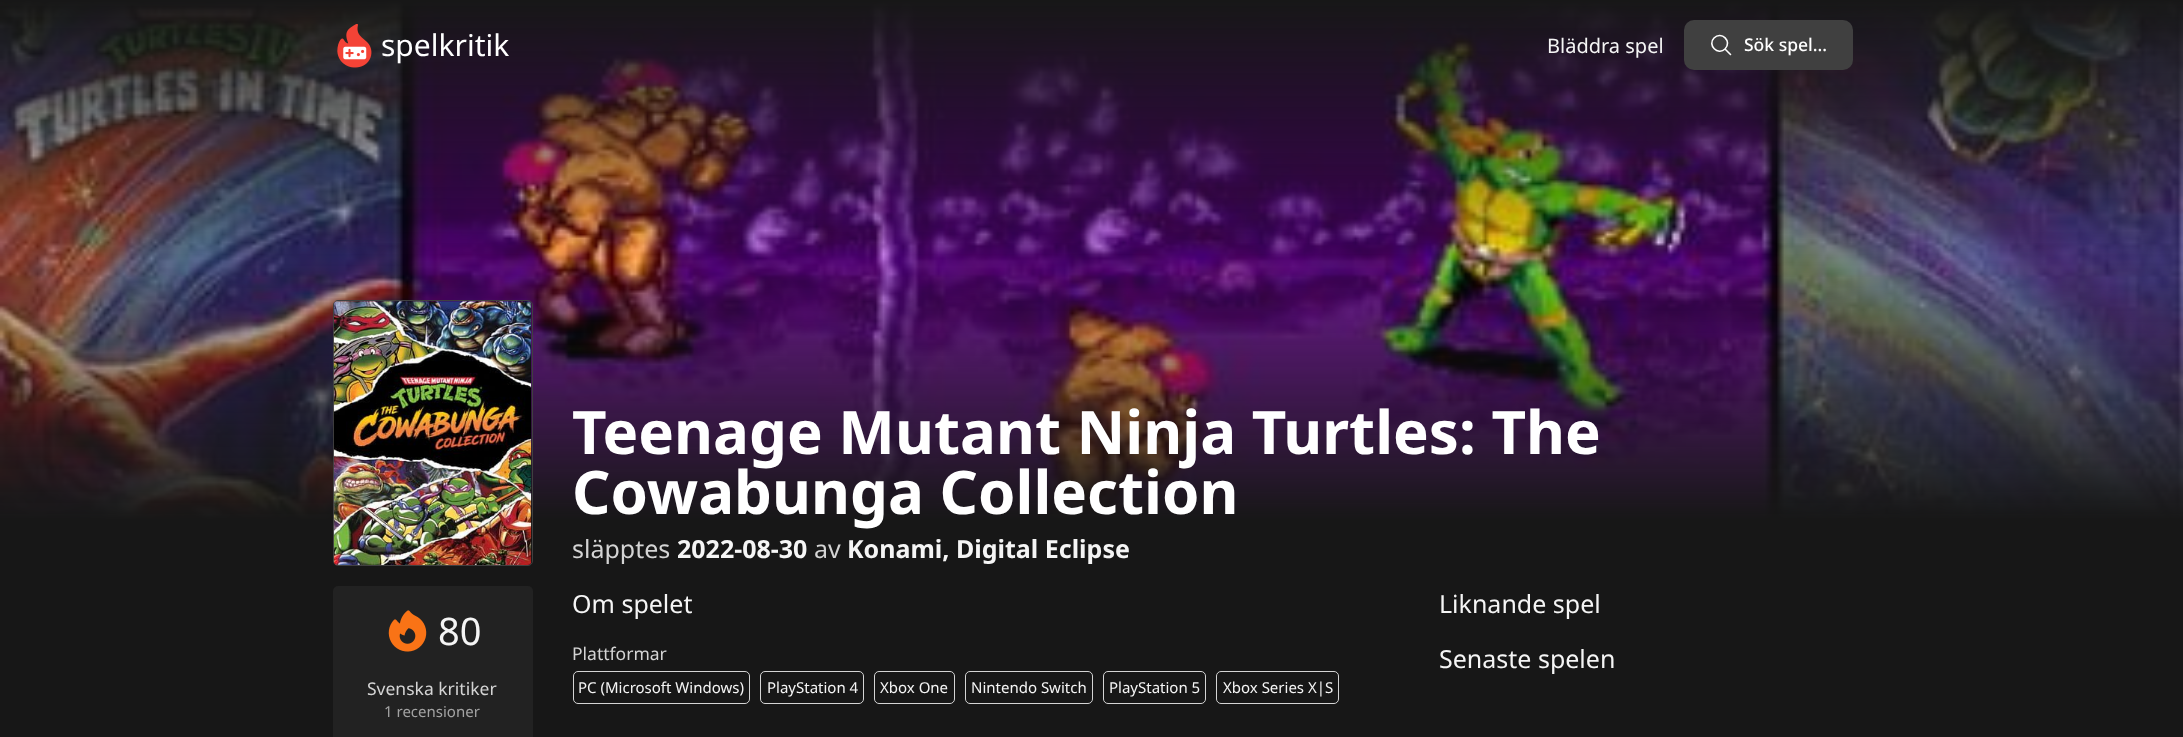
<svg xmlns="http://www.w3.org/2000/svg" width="2183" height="737">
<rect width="100%" height="100%" fill="#171717"/>
<image x="0" y="0" width="2183" height="520" href="media/2.png"/>
<image x="337" y="24" width="35" height="44" href="media/1.png"/>
<text x="381" y="56" style="font-family:Noto Sans;font-size:30px;fill:#fff">spelkritik</text>
<text x="1547" y="53" style="font-family:Noto Sans;font-size:20px;fill:#f5f5f5">Bläddra spel</text>
<rect x="1684" y="20" width="169" height="50" rx="10" fill="#404040"/>
<path d="M1730.5 54.5l-5.5-5.5m0 0c7.5-7.5-3.5-18.5-11-11c-7 7 4 18 11 11z" fill="none" stroke="#fff" stroke-width="1.6" stroke-linecap="round" stroke-linejoin="round"/>
<text x="1744" y="51" style="font-family:Noto Sans;font-size:17.5px;font-weight:500;fill:#fff">Sök spel...</text>
<rect x="333.5" y="300.5" width="199" height="265" rx="4.5" fill="none" stroke="#404040"/>
<image x="333" y="301" width="199" height="264" href="media/3.png"/>
<text x="572" y="454" style="font-family:Noto Sans;font-size:60px;font-weight:bold;fill:#fff">Teenage Mutant Ninja Turtles: The</text>
<text x="572" y="514" style="font-family:Noto Sans;font-size:60px;font-weight:bold;fill:#fff">Cowabunga Collection</text>
<text x="572" y="558" style="font-family:Noto Sans;font-size:25px;fill:#d4d4d4">släpptes</text>
<text x="677" y="558" style="font-family:Noto Sans;font-size:25px;font-weight:bold;fill:#f5f5f5">2022-08-30</text>
<text x="814" y="558" style="font-family:Noto Sans;font-size:25px;fill:#d4d4d4">av</text>
<text x="847" y="558" style="font-family:Noto Sans;font-size:25px;font-weight:bold;fill:#f5f5f5">Konami, Digital Eclipse</text>
<rect x="333" y="586" width="200" height="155" rx="5" fill="#222"/>
<image x="388" y="610" width="39" height="42" href="media/4.png"/>
<text x="438" y="645" style="font-family:Noto Sans;font-size:38px;fill:#f5f5f5">80</text>
<text x="367" y="695" style="font-family:Noto Sans;font-size:17.5px;fill:#d4d4d4">Svenska kritiker</text>
<text x="384" y="717" style="font-family:Noto Sans;font-size:15px;fill:#a3a3a3">1 recensioner</text>
<text x="572" y="613" style="font-family:Noto Sans;font-size:25px;fill:#f5f5f5">Om spelet</text>
<text x="572" y="660" style="font-family:Noto Sans;font-size:17.5px;fill:#d4d4d4">Plattformar</text>
<rect x="573.5" y="671.5" width="176" height="32" rx="4.5" fill="none" stroke="#d4d4d4"/>
<text x="578" y="693" style="font-family:Noto Sans;font-size:15px;fill:#f5f5f5">PC (Microsoft Windows)</text>
<rect x="760.5" y="671.5" width="103" height="32" rx="4.5" fill="none" stroke="#d4d4d4"/>
<text x="767" y="693" style="font-family:Noto Sans;font-size:15px;fill:#f5f5f5">PlayStation 4</text>
<rect x="874.5" y="671.5" width="80" height="32" rx="4.5" fill="none" stroke="#d4d4d4"/>
<text x="880" y="693" style="font-family:Noto Sans;font-size:15px;fill:#f5f5f5">Xbox One</text>
<rect x="965.5" y="671.5" width="127" height="32" rx="4.5" fill="none" stroke="#d4d4d4"/>
<text x="971" y="693" style="font-family:Noto Sans;font-size:15px;fill:#f5f5f5">Nintendo Switch</text>
<rect x="1103.5" y="671.5" width="102" height="32" rx="4.5" fill="none" stroke="#d4d4d4"/>
<text x="1109" y="693" style="font-family:Noto Sans;font-size:15px;fill:#f5f5f5">PlayStation 5</text>
<rect x="1216.5" y="671.5" width="122" height="32" rx="4.5" fill="none" stroke="#d4d4d4"/>
<text x="1223" y="693" style="font-family:Noto Sans;font-size:15px;fill:#f5f5f5">Xbox Series X|S</text>
<text x="1439" y="613" style="font-family:Noto Sans;font-size:25px;fill:#f5f5f5">Liknande spel</text>
<text x="1439" y="668" style="font-family:Noto Sans;font-size:25px;fill:#f5f5f5">Senaste spelen</text>
</svg>
